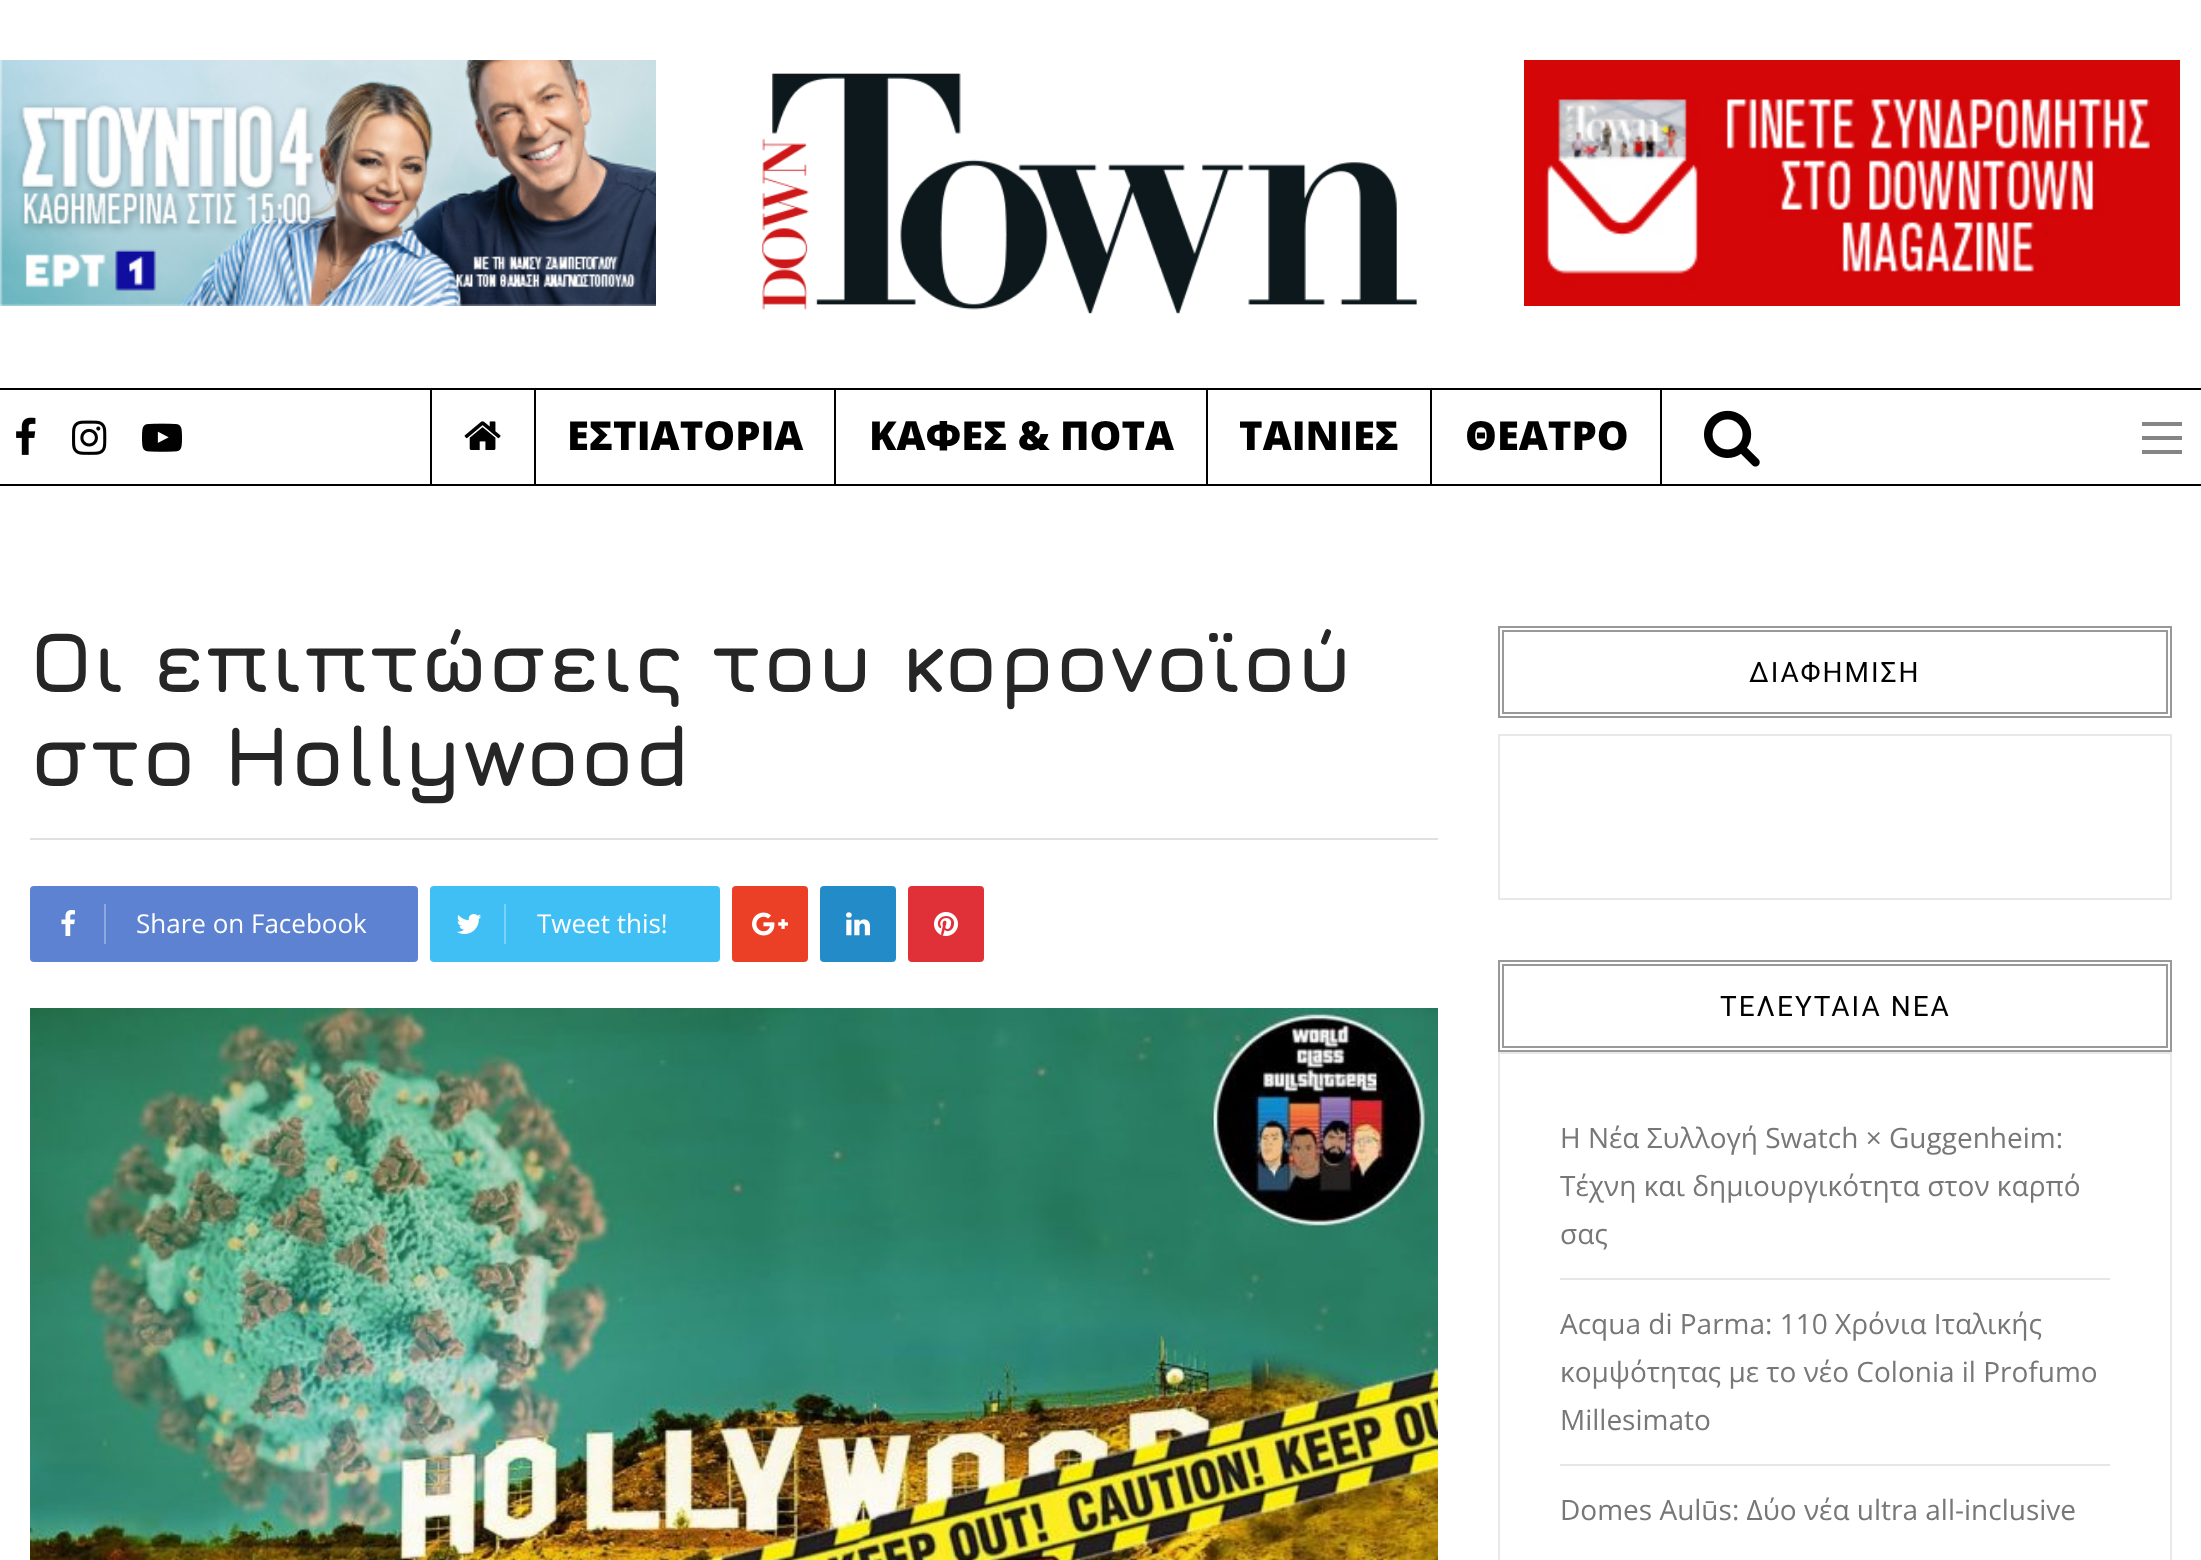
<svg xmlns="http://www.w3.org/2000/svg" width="2201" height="1560">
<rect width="100%" height="100%" fill="#fff"/>
<image x="0" y="60" width="656" height="246" href="media/1.png"/>
<image x="762" y="73" width="655" height="241" href="media/2.png"/>
<image x="1524" y="60" width="656" height="246" href="media/3.png"/>
<rect y="388" width="2201" height="2" fill="#000"/>
<rect y="484" width="2201" height="2" fill="#000"/>
<image x="16" y="417" width="20" height="38" href="media/4.png"/>
<image x="72" y="420" width="35" height="35" href="media/5.png"/>
<image x="142" y="423" width="40" height="29" href="media/6.png"/>
<rect x="430" y="388" width="2" height="96" fill="#010101"/>
<image x="464" y="421" width="37" height="29" href="media/7.png"/>
<rect x="534" y="388" width="2" height="96" fill="#010101"/>
<text x="567" y="450" style="font-family:Open Sans;font-size:40px;font-weight:800;fill:#000">ΕΣΤΙΑΤΟΡΙΑ</text>
<rect x="834" y="388" width="2" height="96" fill="#010101"/>
<text x="869" y="450" style="font-family:Open Sans;font-size:40px;font-weight:800;fill:#000">ΚΑΦΕΣ &amp; ΠΟΤΑ</text>
<rect x="1206" y="388" width="2" height="96" fill="#010101"/>
<text x="1239" y="450" style="font-family:Open Sans;font-size:40px;font-weight:800;fill:#000">ΤΑΙΝΙΕΣ</text>
<rect x="1430" y="388" width="2" height="96" fill="#010101"/>
<text x="1465" y="450" style="font-family:Open Sans;font-size:40px;font-weight:800;fill:#000">ΘΕΑΤΡΟ</text>
<rect x="1660" y="390" width="2" height="96" fill="#000"/>
<image x="1704" y="410" width="56" height="57" href="media/8.png"/>
<rect x="2142" y="422" width="40" height="4" fill="#858585"/>
<rect x="2142" y="436" width="40" height="4" fill="#858585"/>
<rect x="2142" y="450" width="40" height="4" fill="#858585"/>
<text x="30" y="692" style="font-family:Jura;font-size:86px;font-weight:bold;fill:#262626">Οι επιπτώσεις του κορονοϊού</text>
<text x="30" y="786" style="font-family:Jura;font-size:86px;font-weight:bold;fill:#262626">στο Hollywood</text>
<rect x="30" y="838" width="1408" height="2" fill="#e0e0e0"/>
<rect x="30" y="886" width="388" height="76" rx="4" fill="#5d82d1"/>
<image x="61" y="910" width="14" height="26" href="media/9.png"/>
<rect x="104" y="904" width="2" height="40" fill="#8ea8df"/>
<text x="136" y="933" style="font-family:Open Sans;font-size:26px;fill:#fff">Share on Facebook</text>
<rect x="430" y="886" width="290" height="76" rx="4" fill="#40bff5"/>
<image x="456" y="914" width="26" height="20" href="media/10.png"/>
<rect x="504" y="904" width="2" height="40" fill="#79d2f8"/>
<text x="537" y="933" style="font-family:Open Sans;font-size:26px;fill:#fff">Tweet this!</text>
<rect x="732" y="886" width="76" height="76" rx="4" fill="#eb4026"/>
<image x="752" y="912" width="36" height="24" href="media/11.png"/>
<rect x="820" y="886" width="76" height="76" rx="4" fill="#238cc8"/>
<image x="846" y="912" width="24" height="24" href="media/12.png"/>
<rect x="908" y="886" width="76" height="76" rx="4" fill="#e13138"/>
<image x="934" y="912" width="24" height="24" href="media/13.png"/>
<image x="30" y="1008" width="1408" height="552" href="media/14.png"/>
<rect x="1499" y="627" width="672" height="90" fill="none" stroke="#999" stroke-width="2"/>
<rect x="1503" y="631" width="664" height="82" fill="none" stroke="#999" stroke-width="2"/>
<text x="1749" y="682" style="font-family:Roboto;font-size:28px;letter-spacing:2px;fill:#000">ΔΙΑΦΗΜΙΣΗ</text>
<rect x="1499" y="735" width="672" height="164" fill="none" stroke="#e8e8e8" stroke-width="2"/>
<rect x="1499" y="961" width="672" height="90" fill="none" stroke="#999" stroke-width="2"/>
<rect x="1503" y="965" width="664" height="82" fill="none" stroke="#999" stroke-width="2"/>
<text x="1720" y="1016" style="font-family:Roboto;font-size:28px;letter-spacing:2px;fill:#000">ΤΕΛΕΥΤΑΙΑ ΝΕΑ</text>
<rect x="1499" y="1053" width="672" height="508" fill="none" stroke="#e8e8e8" stroke-width="2"/>
<text x="1560" y="1148" style="font-family:Open Sans;font-size:28px;fill:#777">Η Νέα Συλλογή Swatch × Guggenheim:</text>
<text x="1560" y="1196" style="font-family:Open Sans;font-size:28px;fill:#777">Τέχνη και δημιουργικότητα στον καρπό</text>
<text x="1560" y="1244" style="font-family:Open Sans;font-size:28px;fill:#777">σας</text>
<rect x="1560" y="1278" width="550" height="2" fill="#e6e6e6"/>
<text x="1560" y="1334" style="font-family:Open Sans;font-size:28px;fill:#777">Acqua di Parma: 110 Χρόνια Ιταλικής</text>
<text x="1560" y="1382" style="font-family:Open Sans;font-size:28px;fill:#777">κομψότητας με το νέο Colonia il Profumo</text>
<text x="1560" y="1430" style="font-family:Open Sans;font-size:28px;fill:#777">Millesimato</text>
<rect x="1560" y="1464" width="550" height="2" fill="#e6e6e6"/>
<text x="1560" y="1520" style="font-family:Open Sans;font-size:28px;fill:#777">Domes Aulūs: Δύο νέα ultra all-inclusive</text>
</svg>
